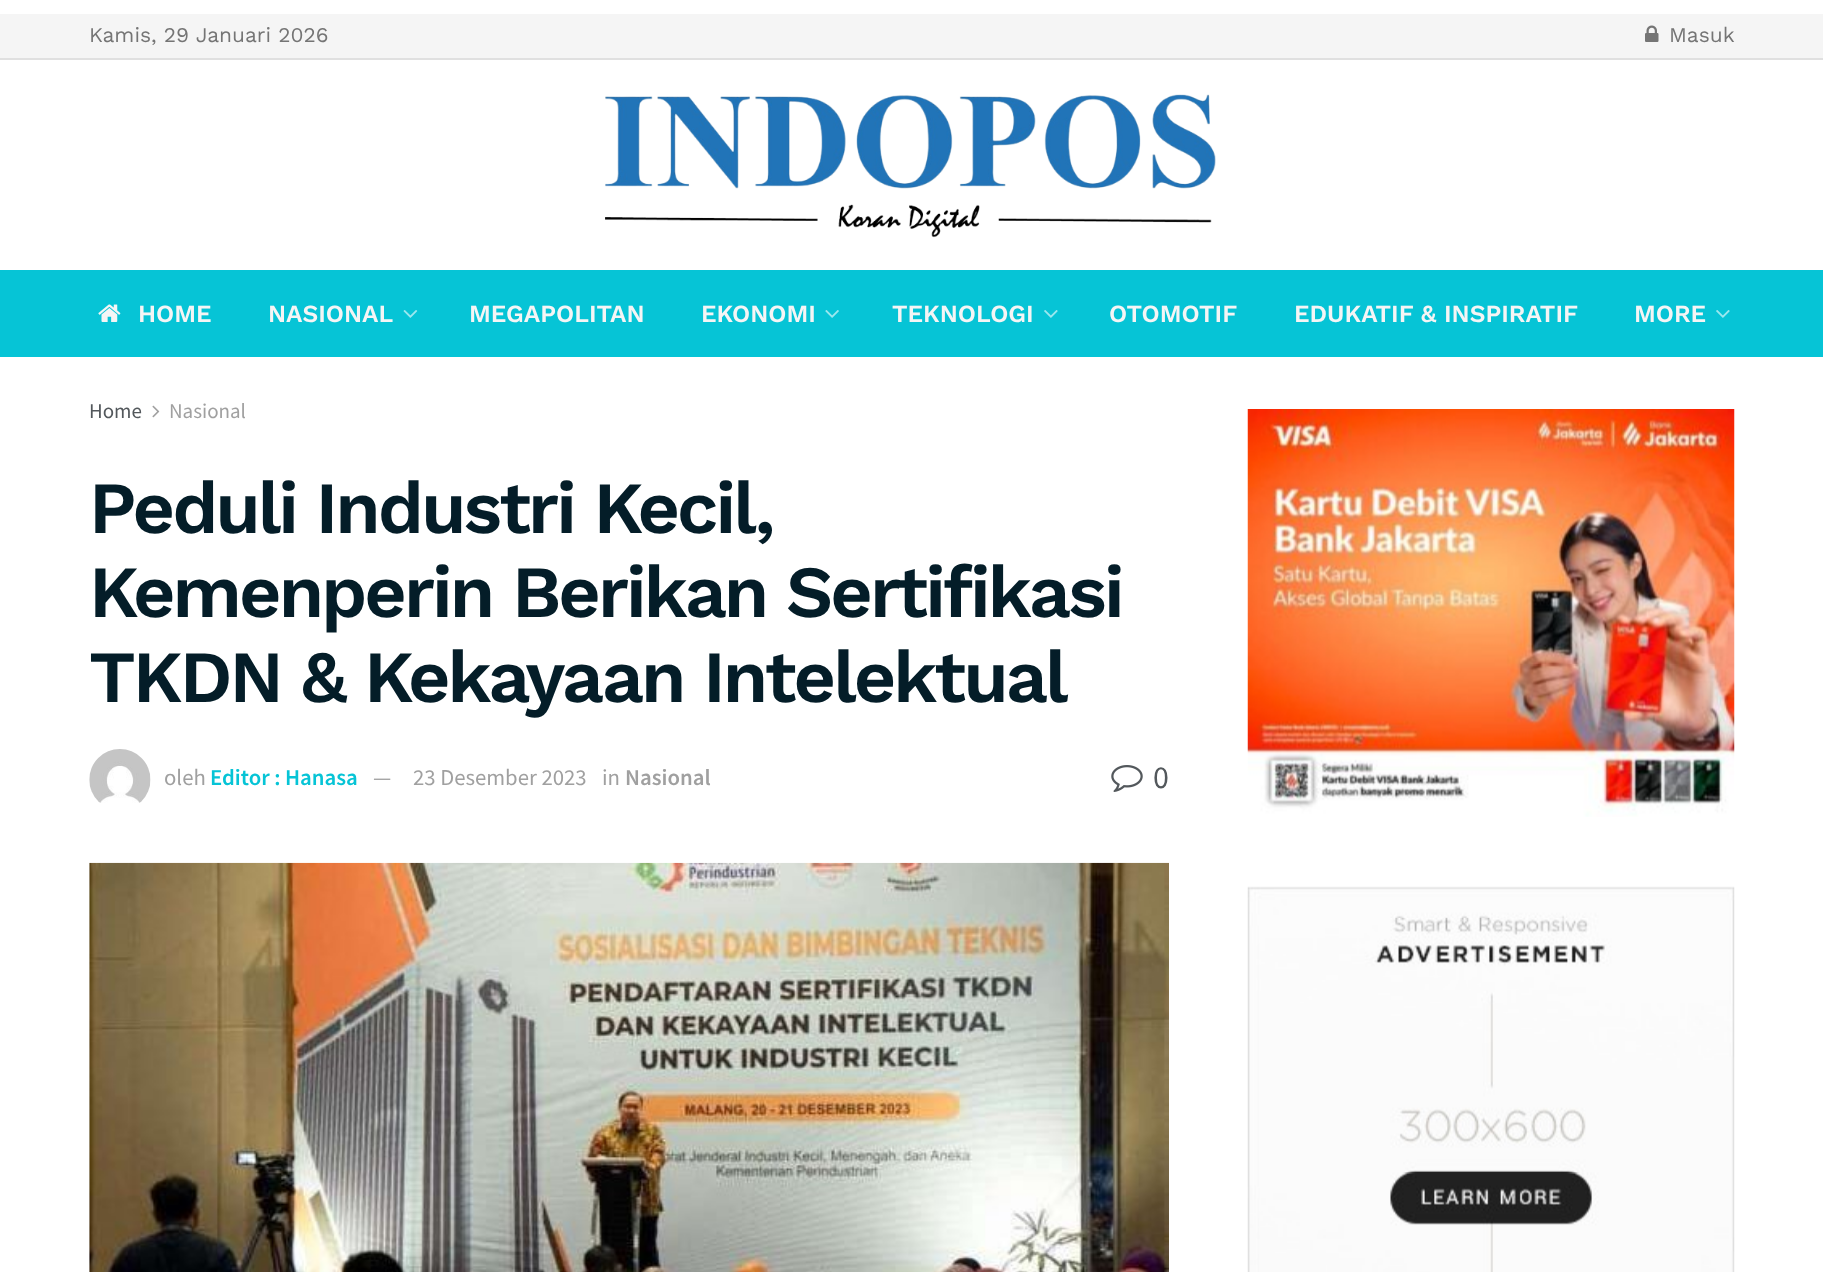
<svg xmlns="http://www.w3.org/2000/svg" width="1823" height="1272">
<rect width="100%" height="100%" fill="#fff"/>
<rect y="14" width="1823" height="44" fill="#f5f5f5"/>
<rect y="58" width="1823" height="2" fill="#e0e0e0"/>
<text x="89" y="42" style="font-family:Work Sans;font-size:21px;fill:#757575">Kamis, 29 Januari 2026</text>
<image x="1645" y="25" width="14" height="17" href="media/1.png"/>
<text x="1669" y="42" style="font-family:Work Sans;font-size:21px;fill:#757575">Masuk</text>
<image x="605" y="94" width="611" height="144" href="media/2.png"/>
<rect y="270" width="1823" height="87" fill="#06c4d6"/>
<image x="98" y="304" width="23" height="18" href="media/3.png"/>
<text x="138" y="322" style="font-family:Work Sans;font-size:24.5px;font-weight:600;fill:#f5f5f5">HOME</text>
<text x="268" y="322" style="font-family:Work Sans;font-size:24.5px;font-weight:600;fill:#f5f5f5">NASIONAL</text>
<image x="403" y="310" width="15" height="8" href="media/4.png"/>
<text x="469" y="322" style="font-family:Work Sans;font-size:24.5px;font-weight:600;fill:#f5f5f5">MEGAPOLITAN</text>
<text x="701" y="322" style="font-family:Work Sans;font-size:24.5px;font-weight:600;fill:#f5f5f5">EKONOMI</text>
<image x="825" y="310" width="14" height="8" href="media/5.png"/>
<text x="892" y="322" style="font-family:Work Sans;font-size:24.5px;font-weight:600;fill:#f5f5f5">TEKNOLOGI</text>
<image x="1044" y="310" width="14" height="8" href="media/6.png"/>
<text x="1109" y="322" style="font-family:Work Sans;font-size:24.5px;font-weight:600;fill:#f5f5f5">OTOMOTIF</text>
<text x="1294" y="322" style="font-family:Work Sans;font-size:24.5px;font-weight:600;fill:#f5f5f5">EDUKATIF &amp; INSPIRATIF</text>
<text x="1634" y="322" style="font-family:Work Sans;font-size:24.5px;font-weight:600;fill:#f5f5f5">MORE</text>
<image x="1716" y="310" width="14" height="8" href="media/6.png"/>
<text x="89" y="418" style="font-family:Source Sans Pro;font-size:21px;fill:#53585c">Home</text>
<image x="152" y="405" width="8" height="13" href="media/7.png"/>
<text x="169" y="418" style="font-family:Source Sans Pro;font-size:21px;fill:#a0a0a0">Nasional</text>
<text x="89" y="533" style="font-family:Work Sans;font-size:73.5px;font-weight:600;letter-spacing:-2.95px;fill:#041d28">Peduli Industri Kecil,</text>
<text x="89" y="617" style="font-family:Work Sans;font-size:73.5px;font-weight:600;letter-spacing:-2.95px;fill:#041d28">Kemenperin Berikan Sertifikasi</text>
<text x="89" y="702" style="font-family:Work Sans;font-size:73.5px;font-weight:600;letter-spacing:-2.95px;fill:#041d28">TKDN &amp; Kekayaan Intelektual</text>
<image x="89" y="749" width="62" height="54" href="media/8.png"/>
<text x="164" y="785" style="font-family:Source Sans Pro;font-size:22.75px;fill:#a0a0a0">oleh</text>
<text x="210" y="785" style="font-family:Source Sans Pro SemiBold;font-size:22.75px;font-weight:600;fill:#06c4d6">Editor : Hanasa</text>
<text x="373" y="785" style="font-family:Source Sans Pro;font-size:22.75px;fill:#a0a0a0">—</text>
<text x="413" y="785" style="font-family:Source Sans Pro;font-size:22.75px;fill:#a0a0a0">23 Desember 2023</text>
<text x="602" y="785" style="font-family:Source Sans Pro;font-size:22.75px;fill:#a0a0a0">in</text>
<text x="625" y="785" style="font-family:Source Sans Pro SemiBold;font-size:22.75px;font-weight:600;fill:#a0a0a0">Nasional</text>
<image x="1111" y="765" width="32" height="27" href="media/9.png"/>
<text x="1153" y="788" style="font-family:Source Sans Pro;font-size:32px;fill:#53585c">0</text>
<rect x="89" y="863" width="1" height="409" fill="#f7f7f7"/>
<image x="89" y="862" width="1080" height="410" href="media/10.png"/>
<image x="1247" y="409" width="488" height="408" href="media/11.png"/>
<image x="1247" y="886" width="488" height="386" href="media/12.png"/>
</svg>
